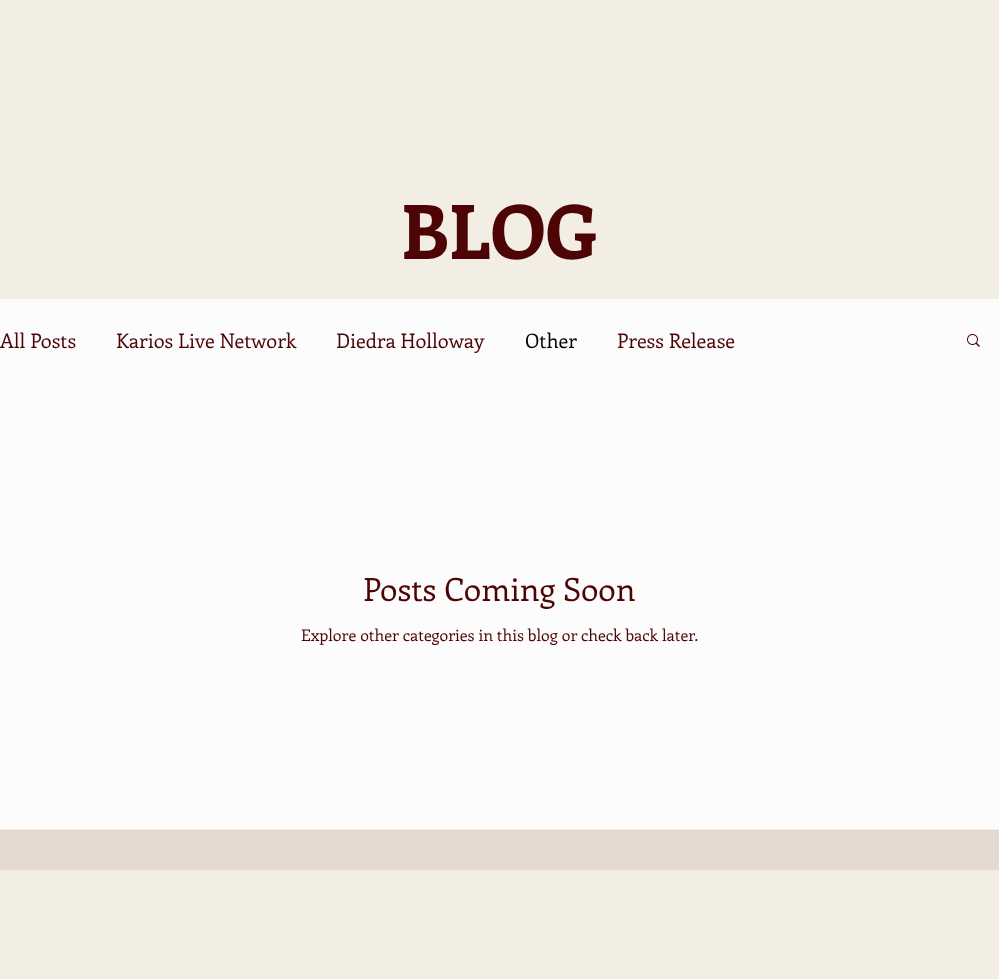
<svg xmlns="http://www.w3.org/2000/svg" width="999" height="979">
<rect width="100%" height="100%" fill="#f2eee4"/>
<text x="401" y="259" style="font-family:Enriqueta;font-size:75px;font-weight:bold;fill:#4d0404">BLOG</text>
<rect y="299" width="999" height="530" fill="#fcfcfc"/>
<text x="0" y="348" style="font-family:Enriqueta;font-size:20px;fill:#4d0404">All Posts</text>
<text x="116" y="348" style="font-family:Enriqueta;font-size:20px;fill:#4d0404">Karios Live Network</text>
<text x="336" y="348" style="font-family:Enriqueta;font-size:20px;fill:#4d0404">Diedra Holloway</text>
<text x="525" y="348" style="font-family:Enriqueta;font-size:20px;fill:#000">Other</text>
<text x="617" y="348" style="font-family:Enriqueta;font-size:20px;fill:#4d0404">Press Release</text>
<image x="967" y="334" width="13" height="13" href="media/1.png"/>
<text x="363" y="601" style="font-family:Enriqueta;font-size:32px;fill:#4d0404">Posts Coming Soon</text>
<text x="301" y="641" style="font-family:Enriqueta;font-size:16px;fill:#4d0404">Explore other categories in this blog or check back later.</text>
<rect y="830" width="999" height="40" fill="#e6d9d0"/>
</svg>
